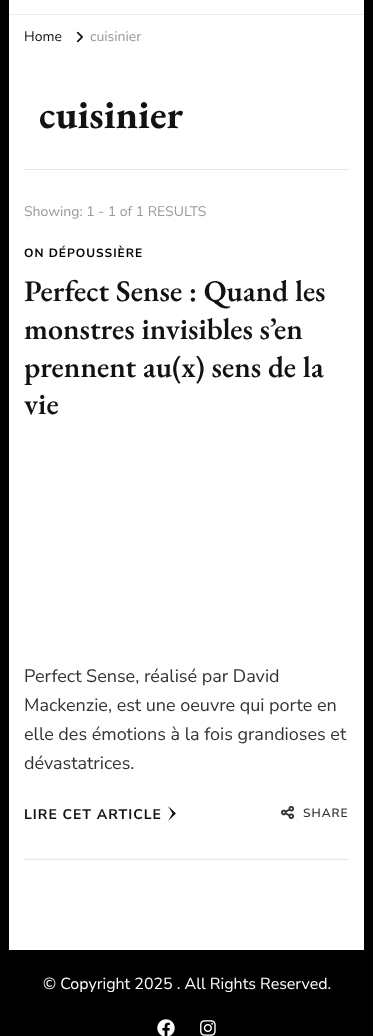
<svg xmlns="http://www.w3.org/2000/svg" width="373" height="1036">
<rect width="100%" height="100%" fill="#000"/>
<rect x="9" width="355" height="950" fill="#fff"/>
<rect x="9" y="14" width="355" height="1" fill="#ededed"/>
<text x="24" y="41" style="font-family:Nunito Sans;font-size:14px;fill:#121212">Home</text>
<image x="76" y="31" width="7" height="12" href="media/1.png"/>
<text x="90" y="41" style="font-family:Nunito Sans;font-size:14px;fill:#999">cuisinier</text>
<rect x="24" y="169" width="325" height="1" fill="#e6e6e6"/>
<text x="39" y="128" style="font-family:EB Garamond;font-size:40px;font-weight:bold;fill:#121212">cuisinier</text>
<text x="24" y="216" style="font-family:Nunito Sans;font-size:14px;fill:#999">Showing: 1 - 1 of 1 RESULTS</text>
<rect x="24" y="859" width="325" height="1" fill="#e6e6e6"/>
<text x="24" y="257" style="font-family:Nunito Sans;font-size:12px;font-weight:bold;letter-spacing:1px;fill:#000">ON DÉPOUSSIÈRE</text>
<text x="24" y="301" style="font-family:EB Garamond;font-size:30px;font-weight:600;fill:#121212">Perfect Sense : Quand les</text>
<text x="24" y="339" style="font-family:EB Garamond;font-size:30px;font-weight:600;fill:#121212">monstres invisibles s’en</text>
<text x="24" y="377" style="font-family:EB Garamond;font-size:30px;font-weight:600;fill:#121212">prennent au(x) sens de la</text>
<text x="24" y="414" style="font-family:EB Garamond;font-size:30px;font-weight:600;fill:#121212">vie</text>
<text x="24" y="682" style="font-family:Nunito Sans;font-size:18px;fill:#333">Perfect Sense, réalisé par David</text>
<text x="24" y="711" style="font-family:Nunito Sans;font-size:18px;fill:#333">Mackenzie, est une oeuvre qui porte en</text>
<text x="24" y="740" style="font-family:Nunito Sans;font-size:18px;fill:#333">elle des émotions à la fois grandioses et</text>
<text x="24" y="769" style="font-family:Nunito Sans;font-size:18px;fill:#333">dévastatrices.</text>
<text x="24" y="819" style="font-family:Nunito Sans;font-size:14px;font-weight:bold;letter-spacing:1px;fill:#121212">LIRE CET ARTICLE</text>
<path d="M176 813.5l-8 7.5l4.5-7.5l-4.5-7.5z" fill="#121212"/>
<image x="281" y="806" width="14" height="13" href="media/2.png"/>
<text x="303" y="817" style="font-family:Nunito Sans;font-size:12px;font-weight:600;letter-spacing:1px;fill:#333">SHARE</text>
<text x="43" y="989" style="font-family:Nunito Sans;font-size:16px;fill:#fff">© Copyright 2025 . All Rights Reserved.</text>
<image x="157" y="1019" width="18" height="17" href="media/3.png"/>
<image x="200" y="1020" width="16" height="16" href="media/4.png"/>
</svg>
